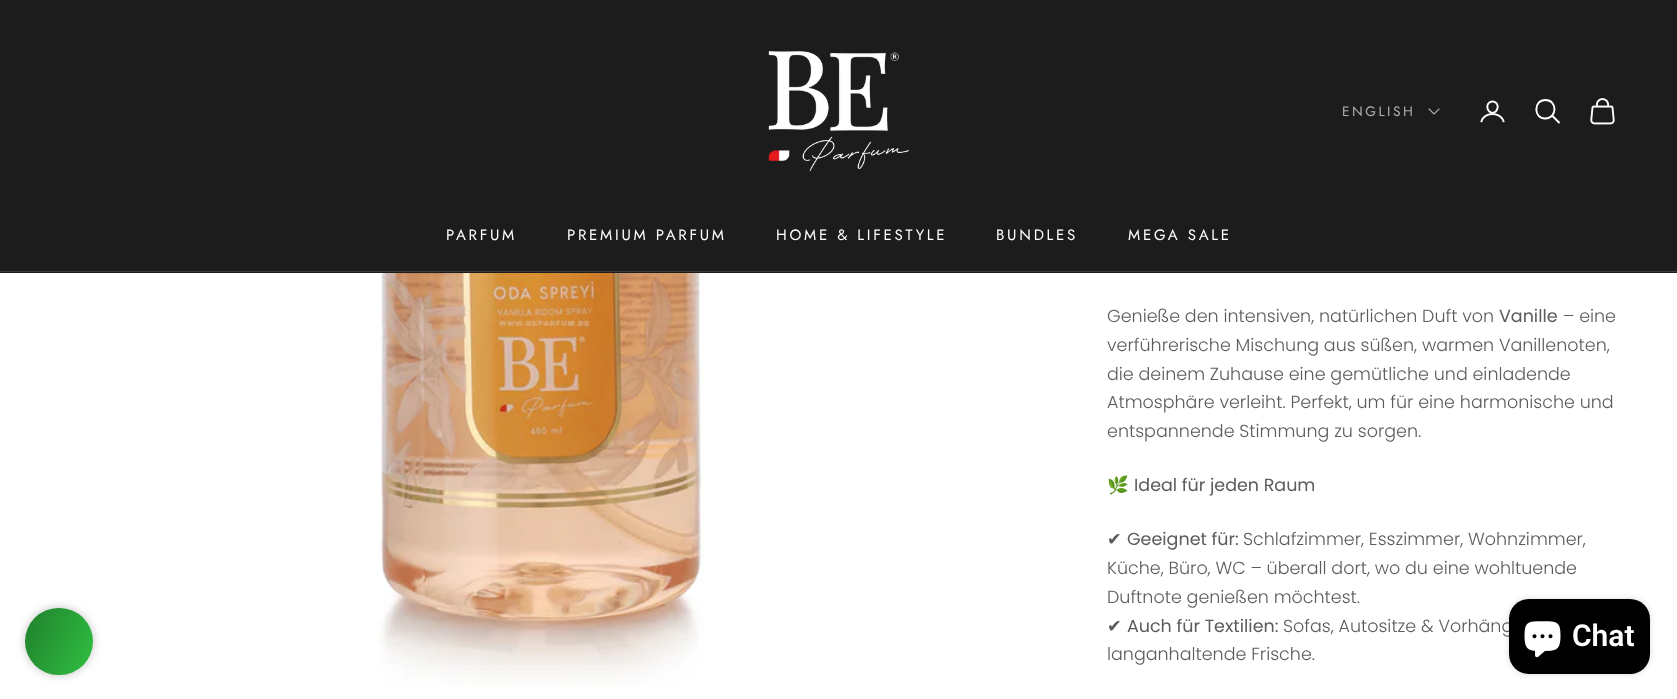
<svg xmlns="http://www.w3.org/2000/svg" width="1677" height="699">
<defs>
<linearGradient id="g1" gradientUnits="userSpaceOnUse" x1="18" y1="624" x2="99" y2="658"><stop offset="0" stop-color="#20802c"/><stop offset="0" stop-color="#20802c"/><stop offset="1" stop-color="#30bf42"/></linearGradient>
</defs>
<rect width="100%" height="100%" fill="#fff"/>
<rect width="1677" height="273" fill="#1c1c1c"/>
<rect y="271" width="1677" height="1" fill="#3e3e3e"/>
<image x="768" y="51" width="141" height="120" href="media/1.png"/>
<text x="1342" y="116" style="font-family:Jost;font-size:13.75px;letter-spacing:2.5px;fill:#b0b0b0">ENGLISH</text>
<path d="M1429 109l5 5l5-5" fill="none" stroke="#b0b0b0" stroke-width="1.2" stroke-linecap="square"/>
<image x="1480" y="100" width="25" height="23" href="media/2.png"/>
<path d="M1545.5 100c-12.5 0-12 19 0 18.5c12-.5 12-18.5 0-18.5z" fill="none" stroke="#fff" stroke-width="1.9"/>
<path d="M1552.5 116l6.5 6.5" fill="none" stroke="#fff" stroke-width="1.9" stroke-linecap="round"/>
<image x="1590" y="98" width="25" height="27" href="media/3.png"/>
<text x="446" y="240" style="font-family:Jost;font-size:15px;letter-spacing:2.75px;fill:#fff">PARFUM</text>
<text x="567" y="240" style="font-family:Jost;font-size:15px;letter-spacing:2.75px;fill:#fff">PREMIUM PARFUM</text>
<text x="776" y="240" style="font-family:Jost;font-size:15px;letter-spacing:2.75px;fill:#fff">HOME &amp; LIFESTYLE</text>
<text x="996" y="240" style="font-family:Jost;font-size:15px;letter-spacing:2.75px;fill:#fff">BUNDLES</text>
<text x="1128" y="240" style="font-family:Jost;font-size:15px;letter-spacing:2.75px;fill:#fff">MEGA SALE</text>
<rect x="25" y="608" width="68" height="67" rx="33.5" fill="#c2c2c2" filter="blur(5px)"/>
<rect x="25" y="608" width="68" height="67" rx="33.5" fill="url(#g1)"/>
<image x="378" y="273" width="326" height="414" href="media/4.png"/>
<text x="1107" y="322" style="font-family:Poppins;font-size:17.5px;font-weight:300;fill:#5c5c5c">Genieße den intensiven, natürlichen Duft von</text>
<text x="1499" y="322" style="font-family:Poppins;font-size:17.5px;fill:#5c5c5c">Vanille</text>
<text x="1563" y="322" style="font-family:Poppins;font-size:17.5px;font-weight:300;fill:#5c5c5c">– eine</text>
<text x="1107" y="351" style="font-family:Poppins;font-size:17.5px;font-weight:300;fill:#5c5c5c">verführerische Mischung aus süßen, warmen Vanillenoten,</text>
<text x="1107" y="380" style="font-family:Poppins;font-size:17.5px;font-weight:300;fill:#5c5c5c">die deinem Zuhause eine gemütliche und einladende</text>
<text x="1107" y="408" style="font-family:Poppins;font-size:17.5px;font-weight:300;fill:#5c5c5c">Atmosphäre verleiht. Perfekt, um für eine harmonische und</text>
<text x="1107" y="437" style="font-family:Poppins;font-size:17.5px;font-weight:300;fill:#5c5c5c">entspannende Stimmung zu sorgen.</text>
<text x="1107" y="491" style="font-family:Noto Color Emoji;font-size:17.5px;fill:#5c5c5c">🌿</text>
<text x="1134" y="491" style="font-family:Poppins;font-size:17.5px;fill:#5c5c5c">Ideal für jeden Raum</text>
<text x="1107" y="545" style="font-family:DejaVu Sans;font-size:17.5px;fill:#5c5c5c">✔</text>
<text x="1127" y="545" style="font-family:Poppins;font-size:17.5px;fill:#5c5c5c">Geeignet für:</text>
<text x="1243" y="545" style="font-family:Poppins;font-size:17.5px;font-weight:300;fill:#5c5c5c">Schlafzimmer, Esszimmer, Wohnzimmer,</text>
<text x="1107" y="574" style="font-family:Poppins;font-size:17.5px;font-weight:300;fill:#5c5c5c">Küche, Büro, WC – überall dort, wo du eine wohltuende</text>
<text x="1107" y="603" style="font-family:Poppins;font-size:17.5px;font-weight:300;fill:#5c5c5c">Duftnote genießen möchtest.</text>
<text x="1107" y="632" style="font-family:DejaVu Sans;font-size:17.5px;fill:#5c5c5c">✔</text>
<text x="1127" y="632" style="font-family:Poppins;font-size:17.5px;fill:#5c5c5c">Auch für Textilien:</text>
<text x="1283" y="632" style="font-family:Poppins;font-size:17.5px;font-weight:300;fill:#5c5c5c">Sofas, Autositze &amp; Vorhäng</text>
<text x="1107" y="660" style="font-family:Poppins;font-size:17.5px;font-weight:300;fill:#5c5c5c">langanhaltende Frische.</text>
<rect x="1509" y="599" width="141" height="75" rx="20" fill="#00000026" filter="blur(3px)"/>
<rect x="1509" y="599" width="141" height="75" rx="20" fill="#000"/>
<image x="1524" y="621" width="37" height="37" href="media/5.png"/>
<text x="1572" y="646" style="font-family:Roboto;font-size:30px;font-weight:600;fill:#fff">Chat</text>
</svg>
